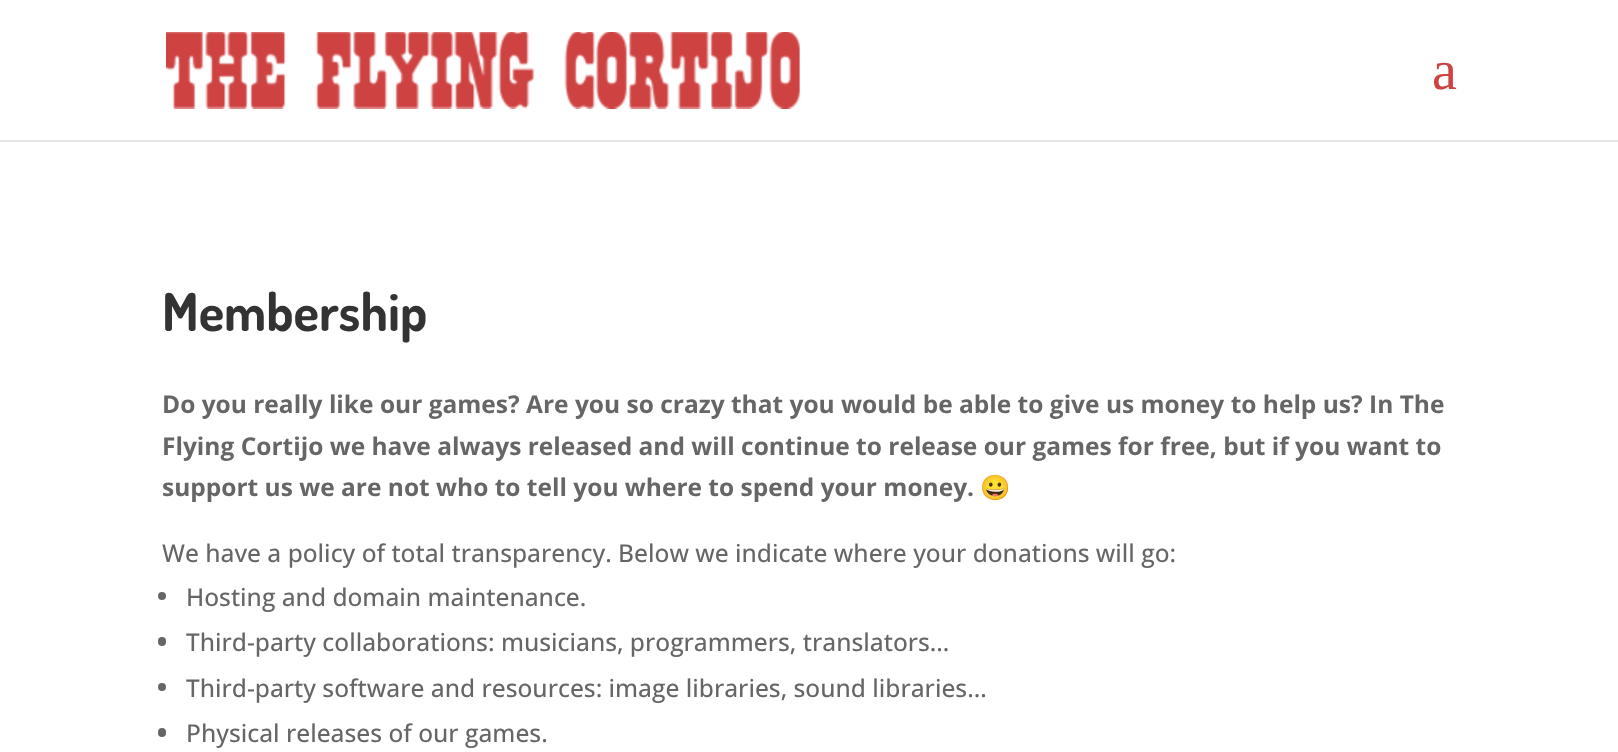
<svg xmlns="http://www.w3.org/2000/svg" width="1618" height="752">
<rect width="100%" height="100%" fill="#fff"/>
<path d="M0 140v2h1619v-140v138z" fill="#e6e6e6"/>
<image x="166" y="32" width="634" height="77" href="media/1.png"/>
<text x="1432" y="89" style="font-family:Liberation Serif;font-size:56px;fill:#ce4242">a</text>
<text x="162" y="331" style="font-family:Dosis;font-size:52.5px;font-weight:bold;fill:#333">Membership</text>
<text x="162" y="413" style="font-family:Open Sans;font-size:24.5px;font-weight:bold;fill:#666">Do you really like our games? Are you so crazy that you would be able to give us money to help us? In The</text>
<text x="162" y="455" style="font-family:Open Sans;font-size:24.5px;font-weight:bold;fill:#666">Flying Cortijo we have always released and will continue to release our games for free, but if you want to</text>
<text x="162" y="496" style="font-family:Open Sans;font-size:24.5px;font-weight:bold;fill:#666">support us we are not who to tell you where to spend your money.</text>
<text x="980" y="496" style="font-family:Noto Color Emoji;font-size:24.5px;font-weight:bold;fill:#666">😀</text>
<text x="162" y="562" style="font-family:Open Sans;font-size:24.5px;font-weight:500;fill:#666">We have a policy of total transparency. Below we indicate where your donations will go:</text>
<circle cx="162" cy="596" r="4" fill="#666"/>
<text x="186" y="606" style="font-family:Open Sans;font-size:24.5px;font-weight:500;fill:#666">Hosting and domain maintenance.</text>
<rect x="158" y="637" width="8" height="9" rx="4" fill="#666"/>
<text x="186" y="651" style="font-family:Open Sans;font-size:24.5px;font-weight:500;fill:#666">Third-party collaborations: musicians, programmers, translators…</text>
<circle cx="162" cy="687" r="4" fill="#666"/>
<text x="186" y="697" style="font-family:Open Sans;font-size:24.5px;font-weight:500;fill:#666">Third-party software and resources: image libraries, sound libraries…</text>
<rect x="158" y="728" width="8" height="9" rx="4" fill="#666"/>
<text x="186" y="742" style="font-family:Open Sans;font-size:24.5px;font-weight:500;fill:#666">Physical releases of our games.</text>
</svg>
